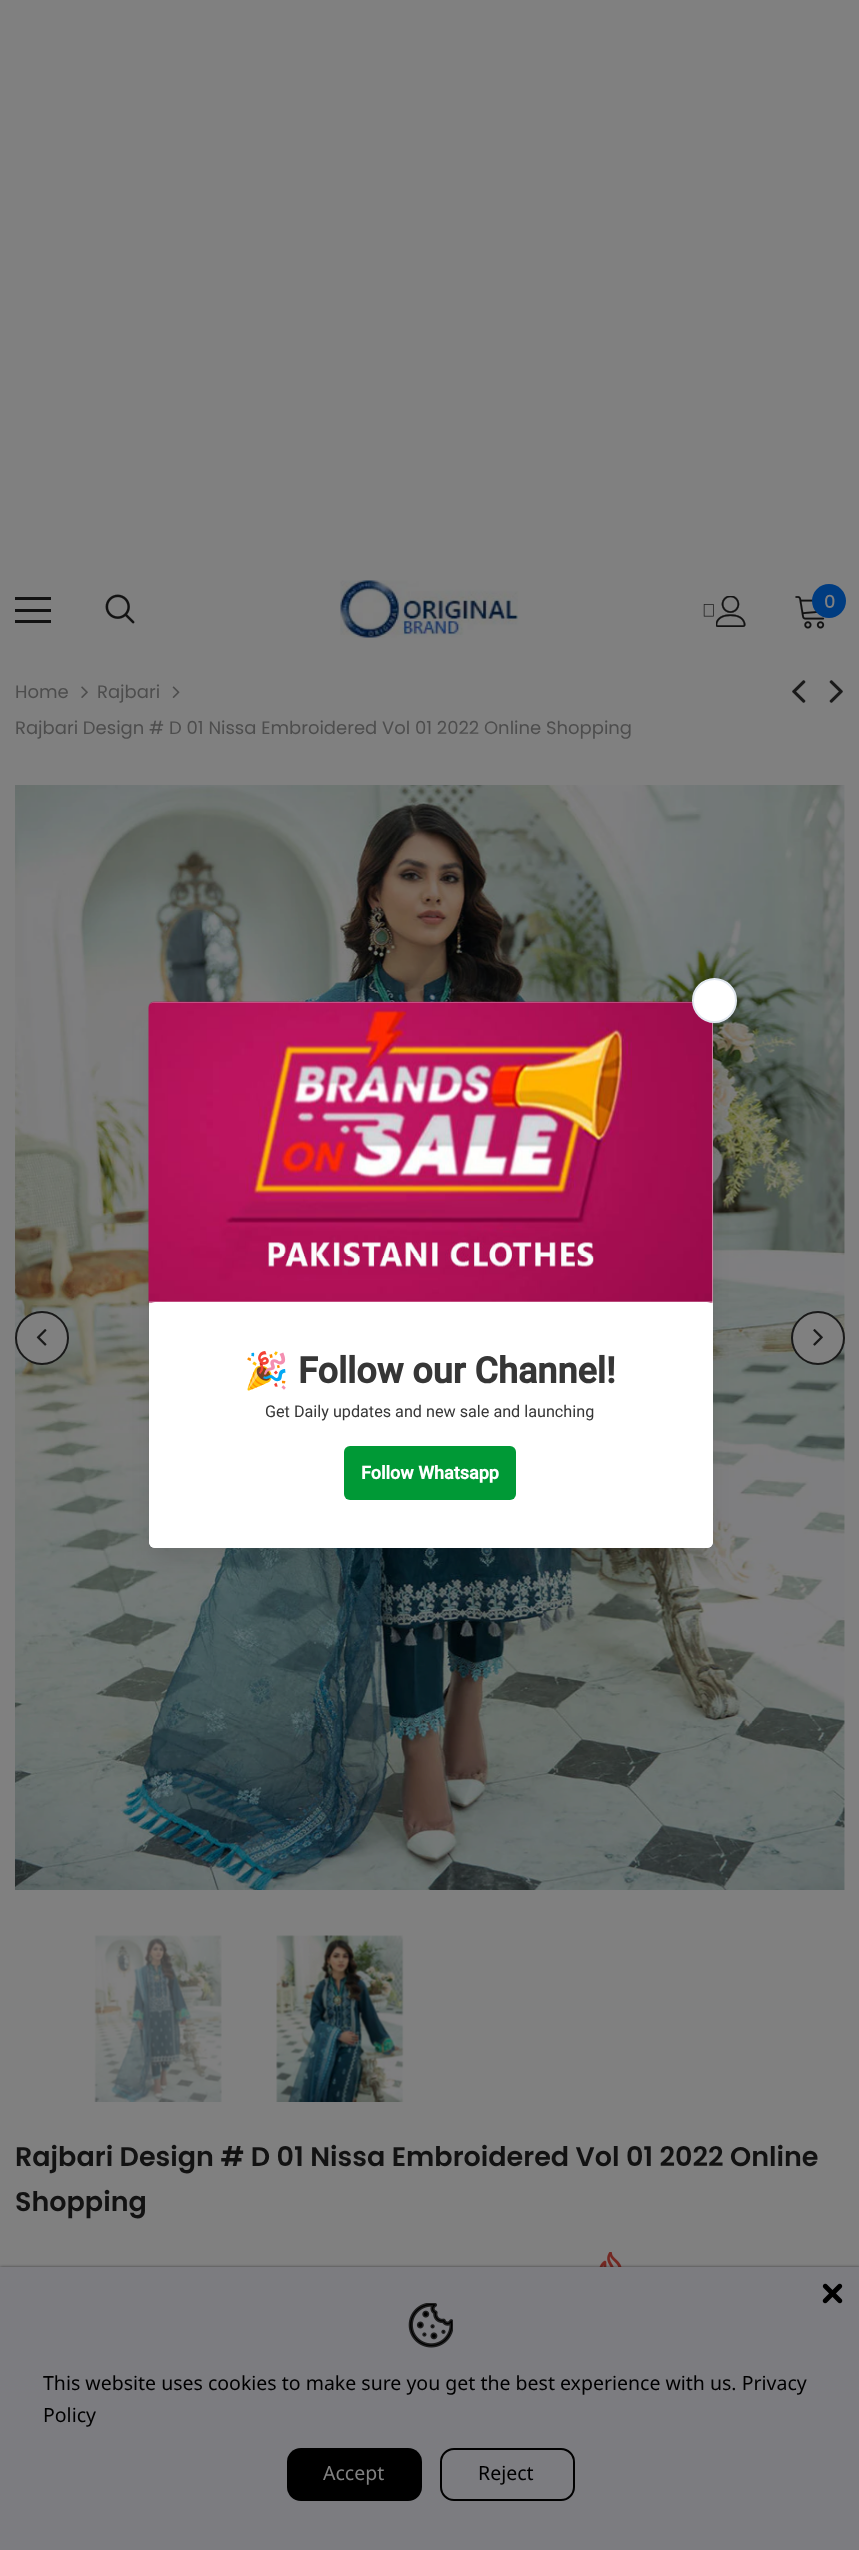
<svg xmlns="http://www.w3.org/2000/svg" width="859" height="2550">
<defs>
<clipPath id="clip1"><rect x="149" y="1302" width="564" height="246"/></clipPath>
</defs>
<rect width="100%" height="100%" fill="#808080"/>
<rect x="15" y="597" width="36" height="3" fill="#121212"/>
<rect x="15" y="609" width="36" height="3" fill="#121212"/>
<rect x="15" y="620" width="36" height="3" fill="#121212"/>
<image x="105" y="594" width="30" height="30" href="media/1.png"/>
<image x="340" y="580" width="179" height="58" href="media/2.png"/>
<image x="703" y="604" width="11" height="13" href="media/3.png"/>
<image x="716" y="596" width="30" height="31" href="media/4.png"/>
<image x="795" y="596" width="30" height="33" href="media/5.png"/>
<circle cx="829" cy="601" r="17" fill="#003c80"/>
<text x="824" y="608" style="font-family:Poppins;font-size:18px;font-weight:500;fill:#808080">0</text>
<text x="15" y="698" style="font-family:Poppins;font-size:18px;fill:#4d4d4d">Home</text>
<image x="81" y="686" width="7" height="12" href="media/6.png"/>
<text x="97" y="698" style="font-family:Poppins;font-size:18px;fill:#4d4d4d">Rajbari</text>
<image x="172" y="686" width="8" height="12" href="media/7.png"/>
<text x="15" y="734" style="font-family:Poppins;font-size:18px;fill:#4d4d4d">Rajbari Design # D 01 Nissa Embroidered Vol 01 2022 Online Shopping</text>
<image x="792" y="680" width="14" height="23" href="media/8.png"/>
<image x="829" y="680" width="14" height="23" href="media/9.png"/>
<image x="15" y="785" width="830" height="1105" href="media/10.png"/>
<circle cx="42" cy="1338" r="26" fill="#808080" stroke="#191919" stroke-width="2"/>
<image x="36" y="1329" width="11" height="17" href="media/11.png"/>
<circle cx="818" cy="1338" r="26" fill="#808080" stroke="#191919" stroke-width="2"/>
<image x="813" y="1329" width="10" height="17" href="media/12.png"/>
<image x="94" y="1935" width="128" height="167" href="media/13.png"/>
<image x="276" y="1935" width="128" height="167" href="media/14.png"/>
<text x="15" y="2166" style="font-family:Poppins;font-size:27px;font-weight:600;fill:#121212">Rajbari Design # D 01 Nissa Embroidered Vol 01 2022 Online</text>
<text x="15" y="2211" style="font-family:Poppins;font-size:27px;font-weight:600;fill:#121212">Shopping</text>
<image x="599" y="2252" width="23" height="15" href="media/15.png"/>
<rect x="153" y="1022" width="555" height="537" rx="1" fill="#0000001a" filter="blur(11px)"/>
<rect x="149" y="1002" width="564" height="546" rx="6" fill="#fff"/>
<image x="148" y="1001" width="565" height="302" href="media/16.png"/>
<circle cx="714.5" cy="1000.5" r="21.5" fill="#fff" stroke="#e2e8f0" stroke-width="2"/>
<g clip-path="url(#clip1)">
<rect x="153" y="1307" width="555" height="237" rx="1" fill="#0000001f" filter="blur(15px)"/>
</g>
<rect x="149" y="1302" width="564" height="246" rx="6" fill="#fff"/>
<text x="244" y="1383" style="font-family:Noto Color Emoji;font-size:36px;font-weight:bold;fill:#363636">🎉</text>
<text x="298" y="1383" style="font-family:Roboto;font-size:36px;font-weight:bold;fill:#363636">Follow our Channel!</text>
<text x="265" y="1417" style="font-family:Roboto;font-size:16.2px;fill:#363636">Get Daily updates and new sale and launching</text>
<rect x="344" y="1446" width="172" height="54" rx="6" fill="#009936"/>
<text x="361" y="1479" style="font-family:Roboto;font-size:18px;font-weight:bold;fill:#fff">Follow Whatsapp</text>
<rect y="2267" width="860" height="283" fill="#00000080" filter="blur(1.5px)"/>
<rect y="2267" width="859" height="283" fill="#7c7c80"/>
<image x="822" y="2283" width="21" height="21" href="media/17.png"/>
<image x="408" y="2303" width="45" height="45" href="media/18.png"/>
<text x="43" y="2390" style="font-family:Noto Sans;font-size:19.5px;fill:#000">This website uses cookies to make sure you get the best experience with us. Privacy</text>
<text x="43" y="2422" style="font-family:Noto Sans;font-size:19.5px;fill:#000">Policy</text>
<rect x="287" y="2448" width="135" height="53" rx="14" fill="#000"/>
<text x="323" y="2480" style="font-family:Noto Sans;font-size:19.5px;fill:#808080">Accept</text>
<rect x="441" y="2449" width="133" height="51" rx="13" fill="none" stroke="#000" stroke-width="2"/>
<text x="478" y="2480" style="font-family:Noto Sans;font-size:19.5px;fill:#000">Reject</text>
</svg>
